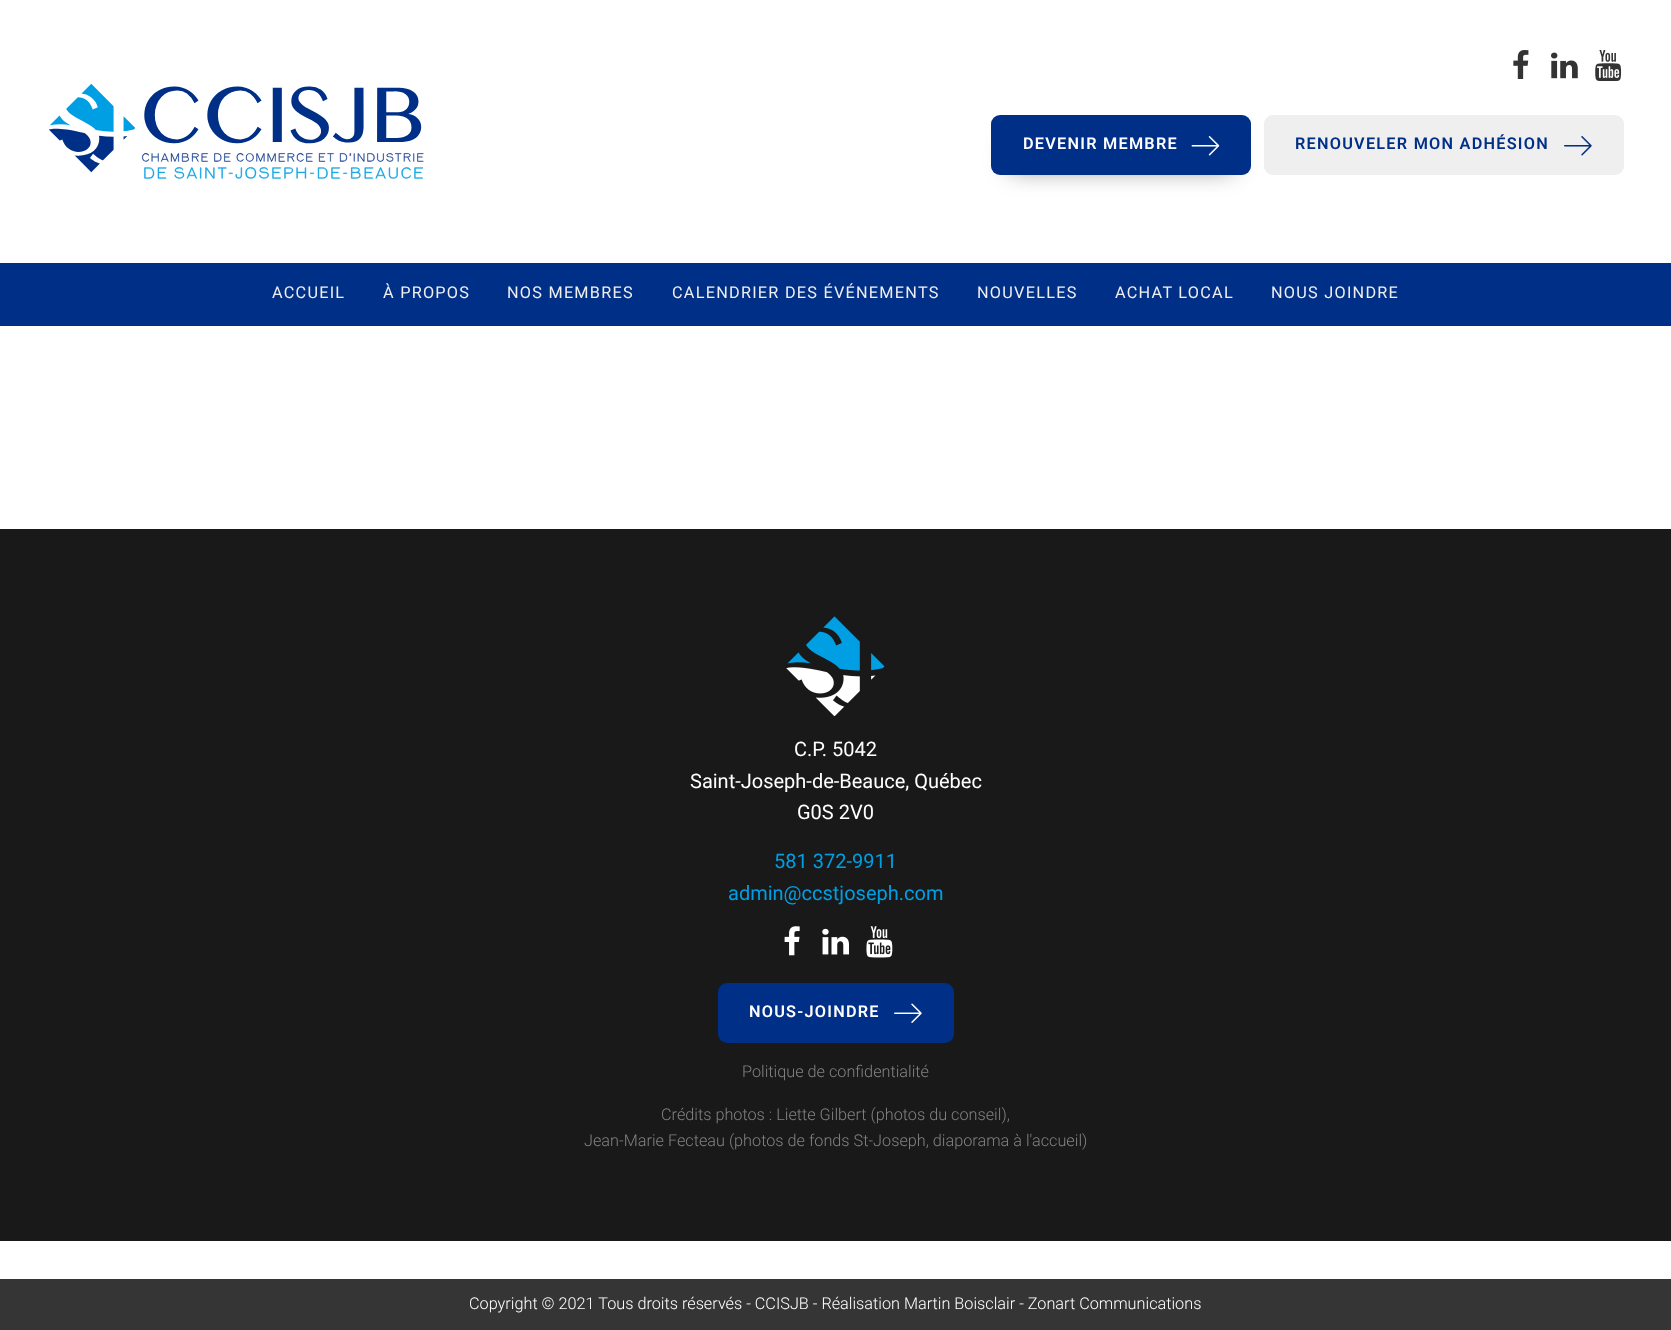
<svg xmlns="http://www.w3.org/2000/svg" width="1671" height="1330">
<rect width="100%" height="100%" fill="#fff"/>
<image x="49" y="84" width="375" height="95" href="media/1.png"/>
<image x="1513" y="50" width="16" height="29" href="media/2.png"/>
<image x="1551" y="52" width="27" height="27" href="media/3.png"/>
<image x="1595" y="50" width="27" height="31" href="media/4.png"/>
<rect x="1010" y="146" width="223" height="23" fill="#00000080" filter="blur(12.5px)"/>
<rect x="991" y="115" width="260" height="60" rx="9" fill="#002f87"/>
<text x="1023" y="149" style="font-family:Roboto;font-size:16.25px;font-weight:600;letter-spacing:1.25px;fill:#fff">DEVENIR MEMBRE</text>
<image x="1191" y="136" width="29" height="20" href="media/5.png"/>
<rect x="1264" y="115" width="360" height="60" rx="9" fill="#efefef"/>
<text x="1295" y="149" style="font-family:Roboto;font-size:16.25px;font-weight:600;letter-spacing:1.25px;fill:#002f87">RENOUVELER MON ADHÉSION</text>
<image x="1564" y="136" width="28" height="20" href="media/6.png"/>
<rect y="263" width="1671" height="63" fill="#002f87"/>
<text x="272" y="298" style="font-family:Roboto;font-size:16.25px;letter-spacing:1.25px;fill:#efefef">ACCUEIL</text>
<text x="383" y="298" style="font-family:Roboto;font-size:16.25px;letter-spacing:1.25px;fill:#efefef">À PROPOS</text>
<text x="507" y="298" style="font-family:Roboto;font-size:16.25px;letter-spacing:1.25px;fill:#efefef">NOS MEMBRES</text>
<text x="672" y="298" style="font-family:Roboto;font-size:16.25px;letter-spacing:1.25px;fill:#efefef">CALENDRIER DES ÉVÉNEMENTS</text>
<text x="977" y="298" style="font-family:Roboto;font-size:16.25px;letter-spacing:1.25px;fill:#efefef">NOUVELLES</text>
<text x="1115" y="298" style="font-family:Roboto;font-size:16.25px;letter-spacing:1.25px;fill:#efefef">ACHAT LOCAL</text>
<text x="1271" y="298" style="font-family:Roboto;font-size:16.25px;letter-spacing:1.25px;fill:#efefef">NOUS JOINDRE</text>
<rect y="529" width="1671" height="712" fill="#191919"/>
<image x="786" y="616" width="99" height="100" href="media/7.png"/>
<text x="794" y="756" style="font-family:Roboto;font-size:20px;fill:#fff">C.P. 5042</text>
<text x="690" y="788" style="font-family:Roboto;font-size:20px;fill:#fff">Saint-Joseph-de-Beauce, Québec</text>
<text x="797" y="819" style="font-family:Roboto;font-size:20px;fill:#fff">G0S 2V0</text>
<text x="774" y="868" style="font-family:Roboto;font-size:20px;fill:#009fe3">581 372-9911</text>
<text x="728" y="900" style="font-family:Roboto;font-size:20px;fill:#009fe3">admin@ccstjoseph.com</text>
<image x="784" y="926" width="16" height="30" href="media/8.png"/>
<image x="822" y="928" width="27" height="27" href="media/9.png"/>
<image x="866" y="926" width="27" height="32" href="media/10.png"/>
<rect x="718" y="983" width="236" height="60" rx="9" fill="#002f87"/>
<text x="749" y="1017" style="font-family:Roboto;font-size:16.25px;font-weight:600;letter-spacing:1.25px;fill:#fff">NOUS-JOINDRE</text>
<image x="894" y="1003" width="28" height="20" href="media/11.png"/>
<text x="742" y="1077" style="font-family:Roboto;font-size:16.25px;font-weight:300;fill:#828282">Politique de confidentialité</text>
<text x="661" y="1120" style="font-family:Roboto;font-size:16.25px;font-weight:300;fill:#828282">Crédits photos : Liette Gilbert (photos du conseil),</text>
<text x="584" y="1146" style="font-family:Roboto;font-size:16.25px;font-weight:300;fill:#828282">Jean-Marie Fecteau (photos de fonds St-Joseph, diaporama à l'accueil)</text>
<rect y="1279" width="1671" height="51" fill="#353535"/>
<text x="469" y="1309" style="font-family:Roboto;font-size:16.25px;font-weight:300;fill:#fff">Copyright © 2021 Tous droits réservés - CCISJB - Réalisation Martin Boisclair - Zonart Communications</text>
</svg>
